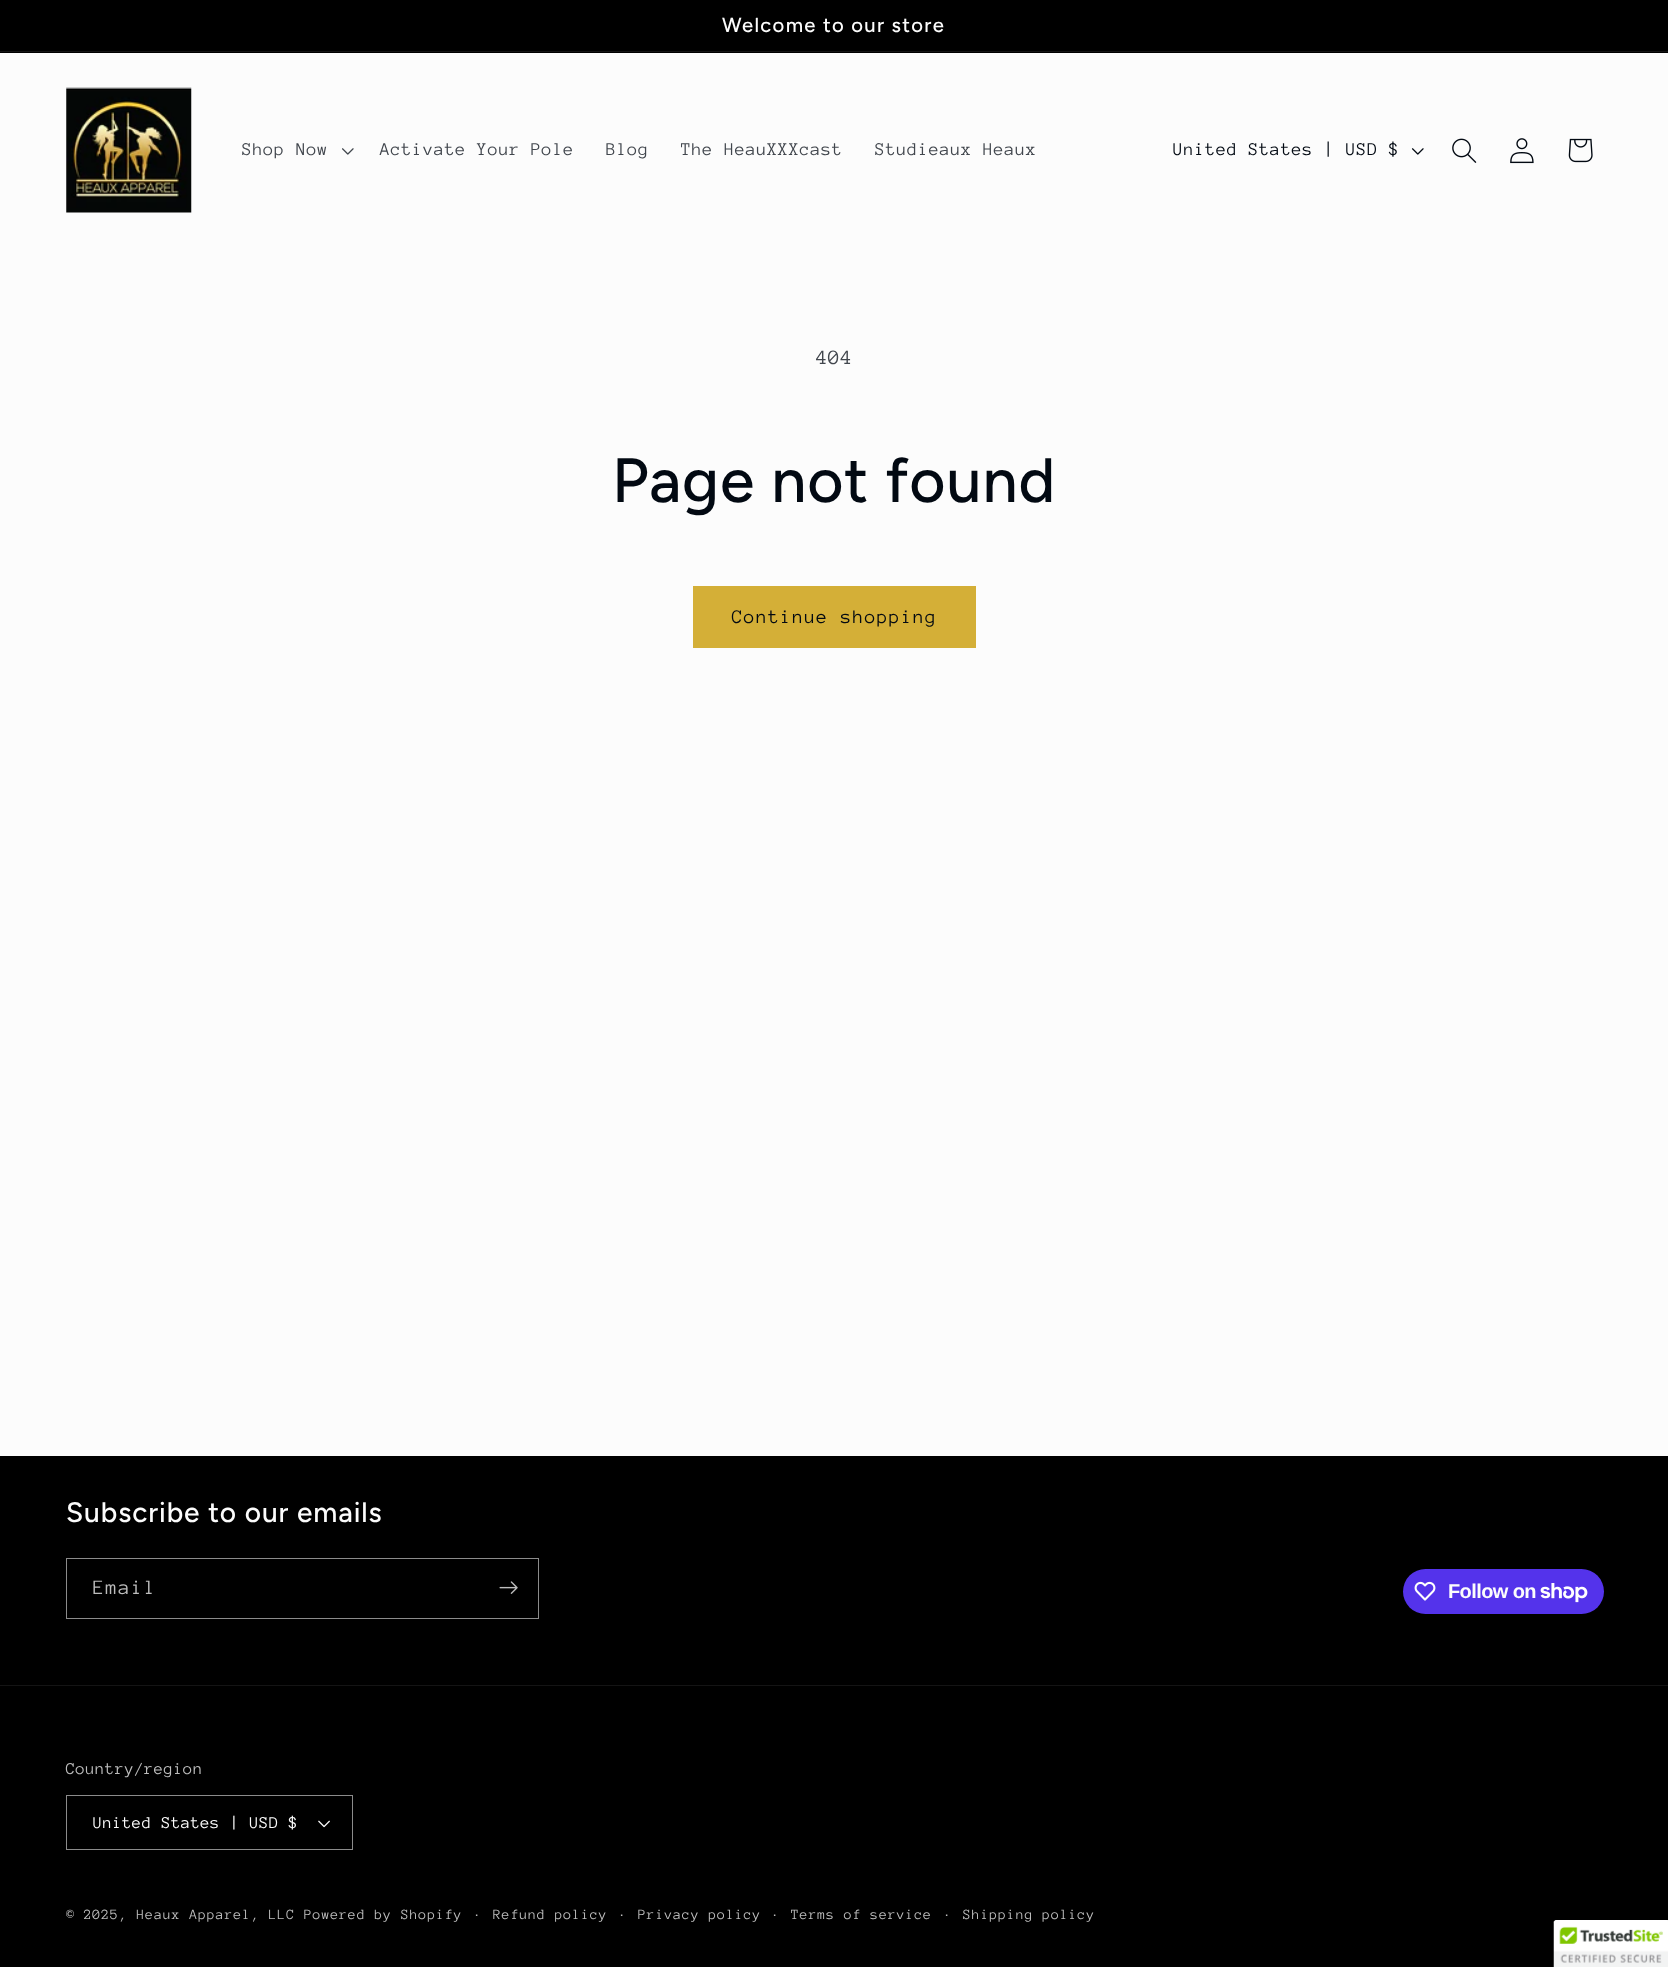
<svg xmlns="http://www.w3.org/2000/svg" width="1668" height="1967">
<rect width="100%" height="100%" fill="#fcfcfc"/>
<rect width="1668" height="53" fill="#000"/>
<rect y="51" width="1668" height="1" fill="#141414"/>
<text x="722" y="32" style="font-family:Figtree;font-size:20.25px;font-weight:500;letter-spacing:1.3px;fill:#fcfcfc">Welcome to our store</text>
<image x="66" y="87" width="126" height="126" href="media/1.png"/>
<text x="242" y="155" style="font-family:Anonymous Pro;font-size:18.4px;letter-spacing:0.75px;fill:#41464d">Shop Now</text>
<image x="342" y="148" width="12" height="7" href="media/2.png"/>
<text x="380" y="155" style="font-family:Anonymous Pro;font-size:18.4px;letter-spacing:0.75px;fill:#41464d">Activate Your Pole</text>
<text x="606" y="155" style="font-family:Anonymous Pro;font-size:18.4px;letter-spacing:0.75px;fill:#41464d">Blog</text>
<text x="681" y="155" style="font-family:Anonymous Pro;font-size:18.4px;letter-spacing:0.75px;fill:#41464d">The HeauXXXcast</text>
<text x="875" y="155" style="font-family:Anonymous Pro;font-size:18.4px;letter-spacing:0.75px;fill:#41464d">Studieaux Heaux</text>
<text x="1173" y="155" style="font-family:Anonymous Pro;font-size:18.4px;letter-spacing:0.75px;fill:#020912">United States | USD $</text>
<image x="1411" y="148" width="13" height="7" href="media/3.png"/>
<image x="1452" y="138" width="25" height="25" href="media/4.png"/>
<image x="1510" y="138" width="24" height="26" href="media/5.png"/>
<image x="1568" y="138" width="25" height="25" href="media/6.png"/>
<text x="816" y="364" style="font-family:Anonymous Pro;font-size:21px;letter-spacing:0.75px;fill:#41464d">404</text>
<text x="612" y="502" style="font-family:Figtree;font-size:62.5px;font-weight:500;letter-spacing:0.9px;fill:#020912">Page not found</text>
<rect x="693" y="586" width="283" height="62" fill="#d4af37"/>
<text x="732" y="623" style="font-family:Anonymous Pro;font-size:19.75px;letter-spacing:1.3px;fill:#020912">Continue shopping</text>
<rect y="1456" width="1668" height="511" fill="#000"/>
<text x="66" y="1522" style="font-family:Figtree;font-size:28.1px;font-weight:500;letter-spacing:0.9px;fill:#fcfcfc">Subscribe to our emails</text>
<rect x="66.5" y="1558.5" width="472" height="60" fill="none" stroke="#8b8b8b"/>
<text x="93" y="1594" style="font-family:Anonymous Pro;font-size:21px;letter-spacing:1.3px;fill:#bdbdbd">Email</text>
<image x="499" y="1581" width="19" height="13" href="media/7.png"/>
<rect x="1403" y="1569" width="201" height="45" rx="22.5" fill="#5433eb"/>
<image x="1414" y="1581" width="22" height="20" href="media/8.png"/>
<text x="1448" y="1598" style="font-family:Liberation Sans;font-size:20px;font-weight:bold;letter-spacing:-0.6px;fill:#fcfcfc">Follow on</text>
<image x="1540" y="1583" width="48" height="20" href="media/9.png"/>
<rect y="1685" width="1668" height="1" fill="#141414"/>
<text x="66" y="1774" style="font-family:Anonymous Pro;font-size:17px;letter-spacing:0.5px;fill:#bdbdbd">Country/region</text>
<image x="318" y="1820" width="12" height="8" href="media/10.png"/>
<rect x="66.5" y="1795.5" width="286" height="54" fill="none" stroke="#8b8b8b"/>
<text x="93" y="1828" style="font-family:Anonymous Pro;font-size:17px;letter-spacing:0.5px;fill:#fcfcfc">United States | USD $</text>
<text x="66" y="1919" style="font-family:Anonymous Pro;font-size:14.5px;letter-spacing:0.9px;fill:#bdbdbd">© 2025, Heaux Apparel, LLC</text>
<text x="304" y="1919" style="font-family:Anonymous Pro;font-size:14.5px;letter-spacing:0.9px;fill:#bdbdbd">Powered by Shopify</text>
<text x="473" y="1919" style="font-family:Anonymous Pro;font-size:16px;letter-spacing:0.9px;fill:#bdbdbd">·</text>
<text x="493" y="1919" style="font-family:Anonymous Pro;font-size:14.5px;letter-spacing:0.9px;fill:#bdbdbd">Refund policy</text>
<text x="618" y="1919" style="font-family:Anonymous Pro;font-size:16px;letter-spacing:0.9px;fill:#bdbdbd">·</text>
<text x="638" y="1919" style="font-family:Anonymous Pro;font-size:14.5px;letter-spacing:0.9px;fill:#bdbdbd">Privacy policy</text>
<text x="771" y="1919" style="font-family:Anonymous Pro;font-size:16px;letter-spacing:0.9px;fill:#bdbdbd">·</text>
<text x="791" y="1919" style="font-family:Anonymous Pro;font-size:14.5px;letter-spacing:0.9px;fill:#bdbdbd">Terms of service</text>
<text x="943" y="1919" style="font-family:Anonymous Pro;font-size:16px;letter-spacing:0.9px;fill:#bdbdbd">·</text>
<text x="963" y="1919" style="font-family:Anonymous Pro;font-size:14.5px;letter-spacing:0.9px;fill:#bdbdbd">Shipping policy</text>
<path d="M1556.5 1920h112.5v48h-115v-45.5c0-1.5 1-2.5 2.5-2.5z" fill="#fff"/>
<image x="1553" y="1920" width="115" height="47" href="media/11.png"/>
</svg>
